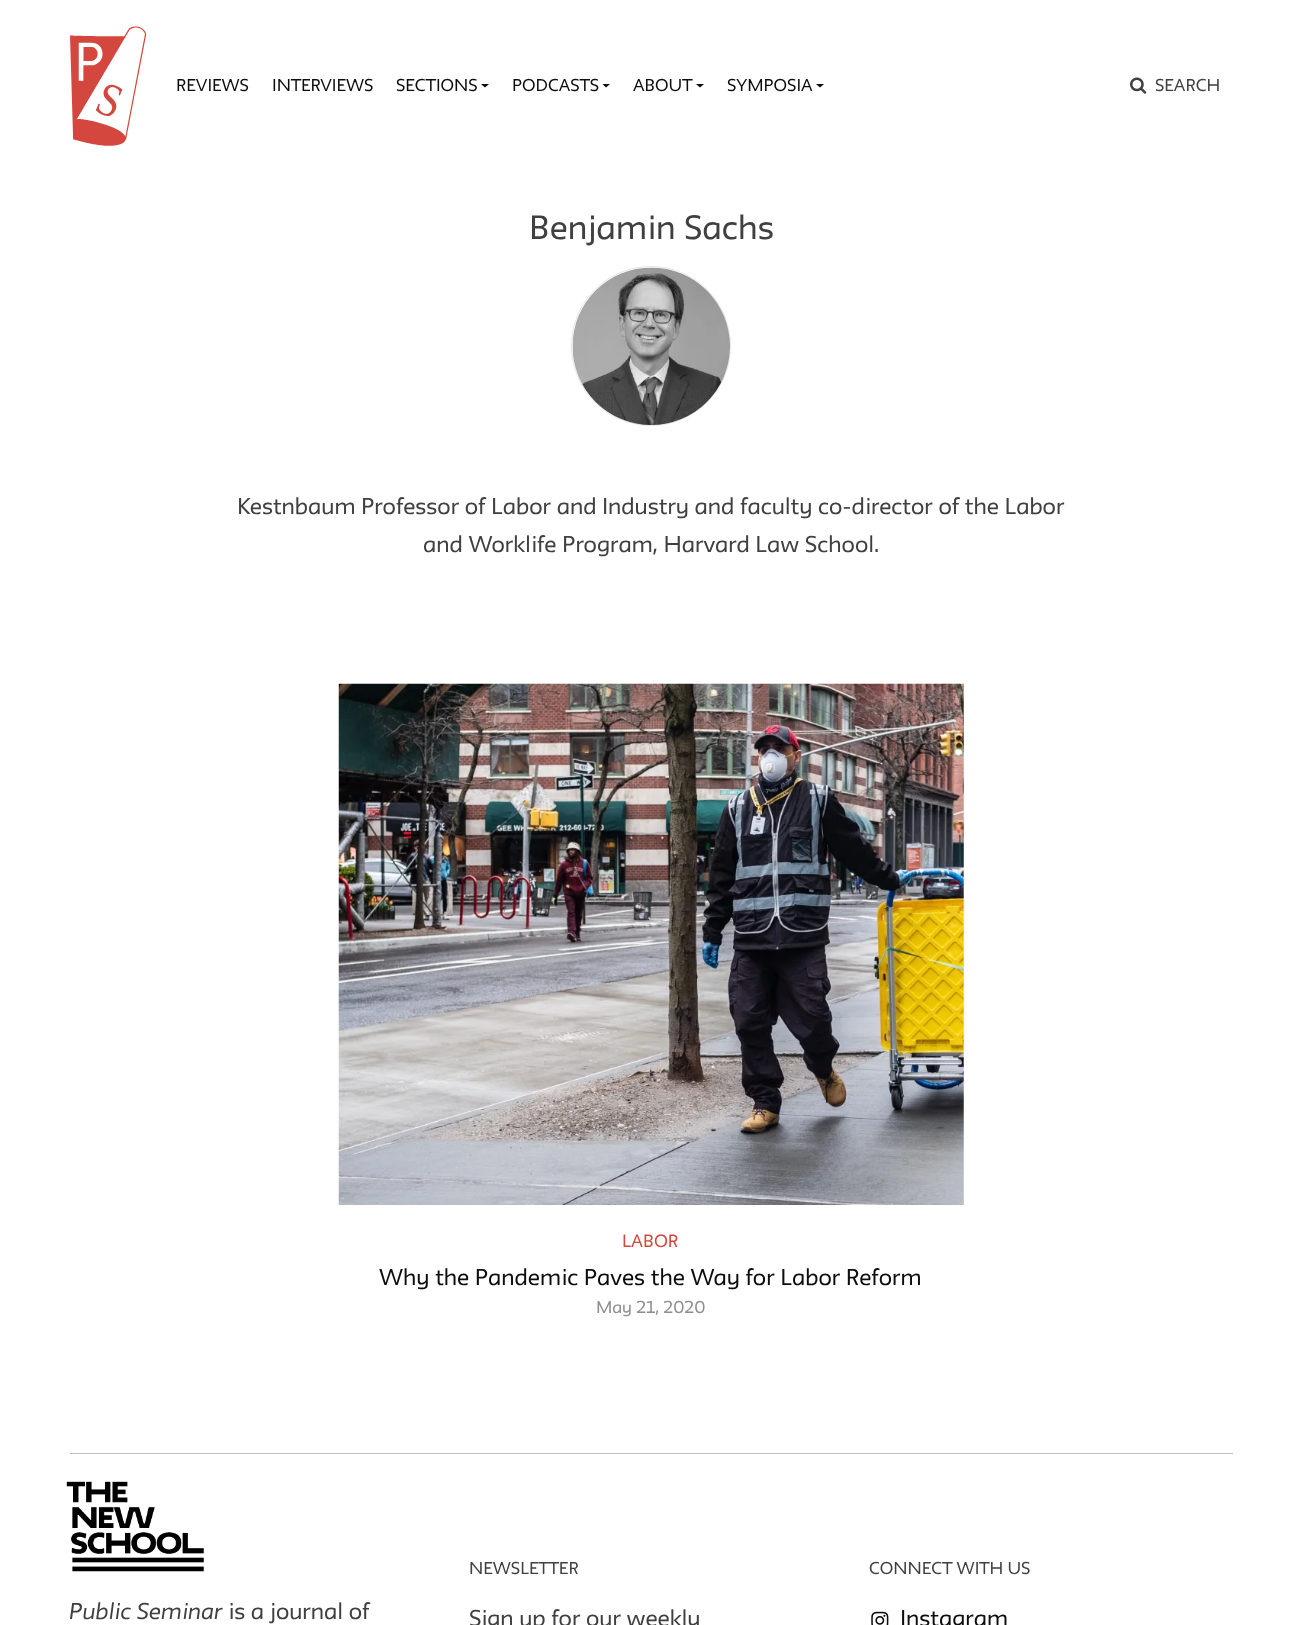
<svg xmlns="http://www.w3.org/2000/svg" width="1301" height="1625">
<rect width="100%" height="100%" fill="#fff"/>
<image x="70" y="26" width="77" height="120" href="media/1.png"/>
<text x="176" y="91" style="font-family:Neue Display;font-size:15px;fill:#0d0d0d">REVIEWS</text>
<text x="272" y="91" style="font-family:Neue Display;font-size:15px;fill:#0d0d0d">INTERVIEWS</text>
<text x="396" y="91" style="font-family:Neue Display;font-size:15px;fill:#0d0d0d">SECTIONS</text>
<path d="M481 84h8l-4 3.5z" fill="#0d0d0d"/>
<text x="512" y="91" style="font-family:Neue Display;font-size:15px;fill:#0d0d0d">PODCASTS</text>
<path d="M602.5 84h7.5l-4 3.5z" fill="#0d0d0d"/>
<text x="633" y="91" style="font-family:Neue Display;font-size:15px;fill:#0d0d0d">ABOUT</text>
<path d="M696 84h8l-4 3.5z" fill="#0d0d0d"/>
<text x="727" y="91" style="font-family:Neue Display;font-size:15px;fill:#0d0d0d">SYMPOSIA</text>
<path d="M816 84h8l-4 3.5z" fill="#0d0d0d"/>
<image x="1130" y="77" width="17" height="17" href="media/2.png"/>
<text x="1155" y="91" style="font-family:Neue Display;font-size:15px;fill:#404040">SEARCH</text>
<text x="529" y="239" style="font-family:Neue;font-size:29.5px;fill:#404040">Benjamin Sachs</text>
<circle cx="651" cy="346" r="79.5" fill="none" stroke="#e6e6e6"/>
<image x="572" y="267" width="158" height="158" href="media/3.png"/>
<text x="237" y="514" style="font-family:Neue;font-size:20px;fill:#404040">Kestnbaum Professor of Labor and Industry and faculty co-director of the Labor</text>
<text x="423" y="552" style="font-family:Neue;font-size:20px;fill:#404040">and Worklife Program, Harvard Law School.</text>
<image x="338" y="683" width="626" height="522" href="media/4.png"/>
<text x="622" y="1247" style="font-family:Neue Display;font-size:15.5px;fill:#d4473f">LABOR</text>
<text x="379" y="1285" style="font-family:Neue;font-size:20px;fill:#0d0d0d">Why the Pandemic Paves the Way for Labor Reform</text>
<text x="596" y="1313" style="font-family:Neue;font-size:15px;fill:#8e8e8e">May 21, 2020</text>
<rect x="70" y="1453" width="1163" height="1" fill="#bebebe"/>
<image x="66" y="1481" width="138" height="91" href="media/5.png"/>
<text x="69" y="1619" style="font-family:Neue;font-size:20px;font-style:italic;fill:#404040">Public Seminar</text>
<text x="228" y="1619" style="font-family:Neue;font-size:20px;fill:#404040">is a journal of</text>
<text x="469" y="1574" style="font-family:Neue Display;font-size:15px;fill:#404040">NEWSLETTER</text>
<text x="469" y="1626" style="font-family:Neue;font-size:20px;fill:#404040">Sign up for our weekly</text>
<text x="869" y="1574" style="font-family:Neue Display;font-size:15px;fill:#404040">CONNECT WITH US</text>
<image x="871" y="1611" width="18" height="14" href="media/6.png"/>
<text x="900" y="1626" style="font-family:Neue;font-size:20px;fill:#0d0d0d">Instagram</text>
</svg>
